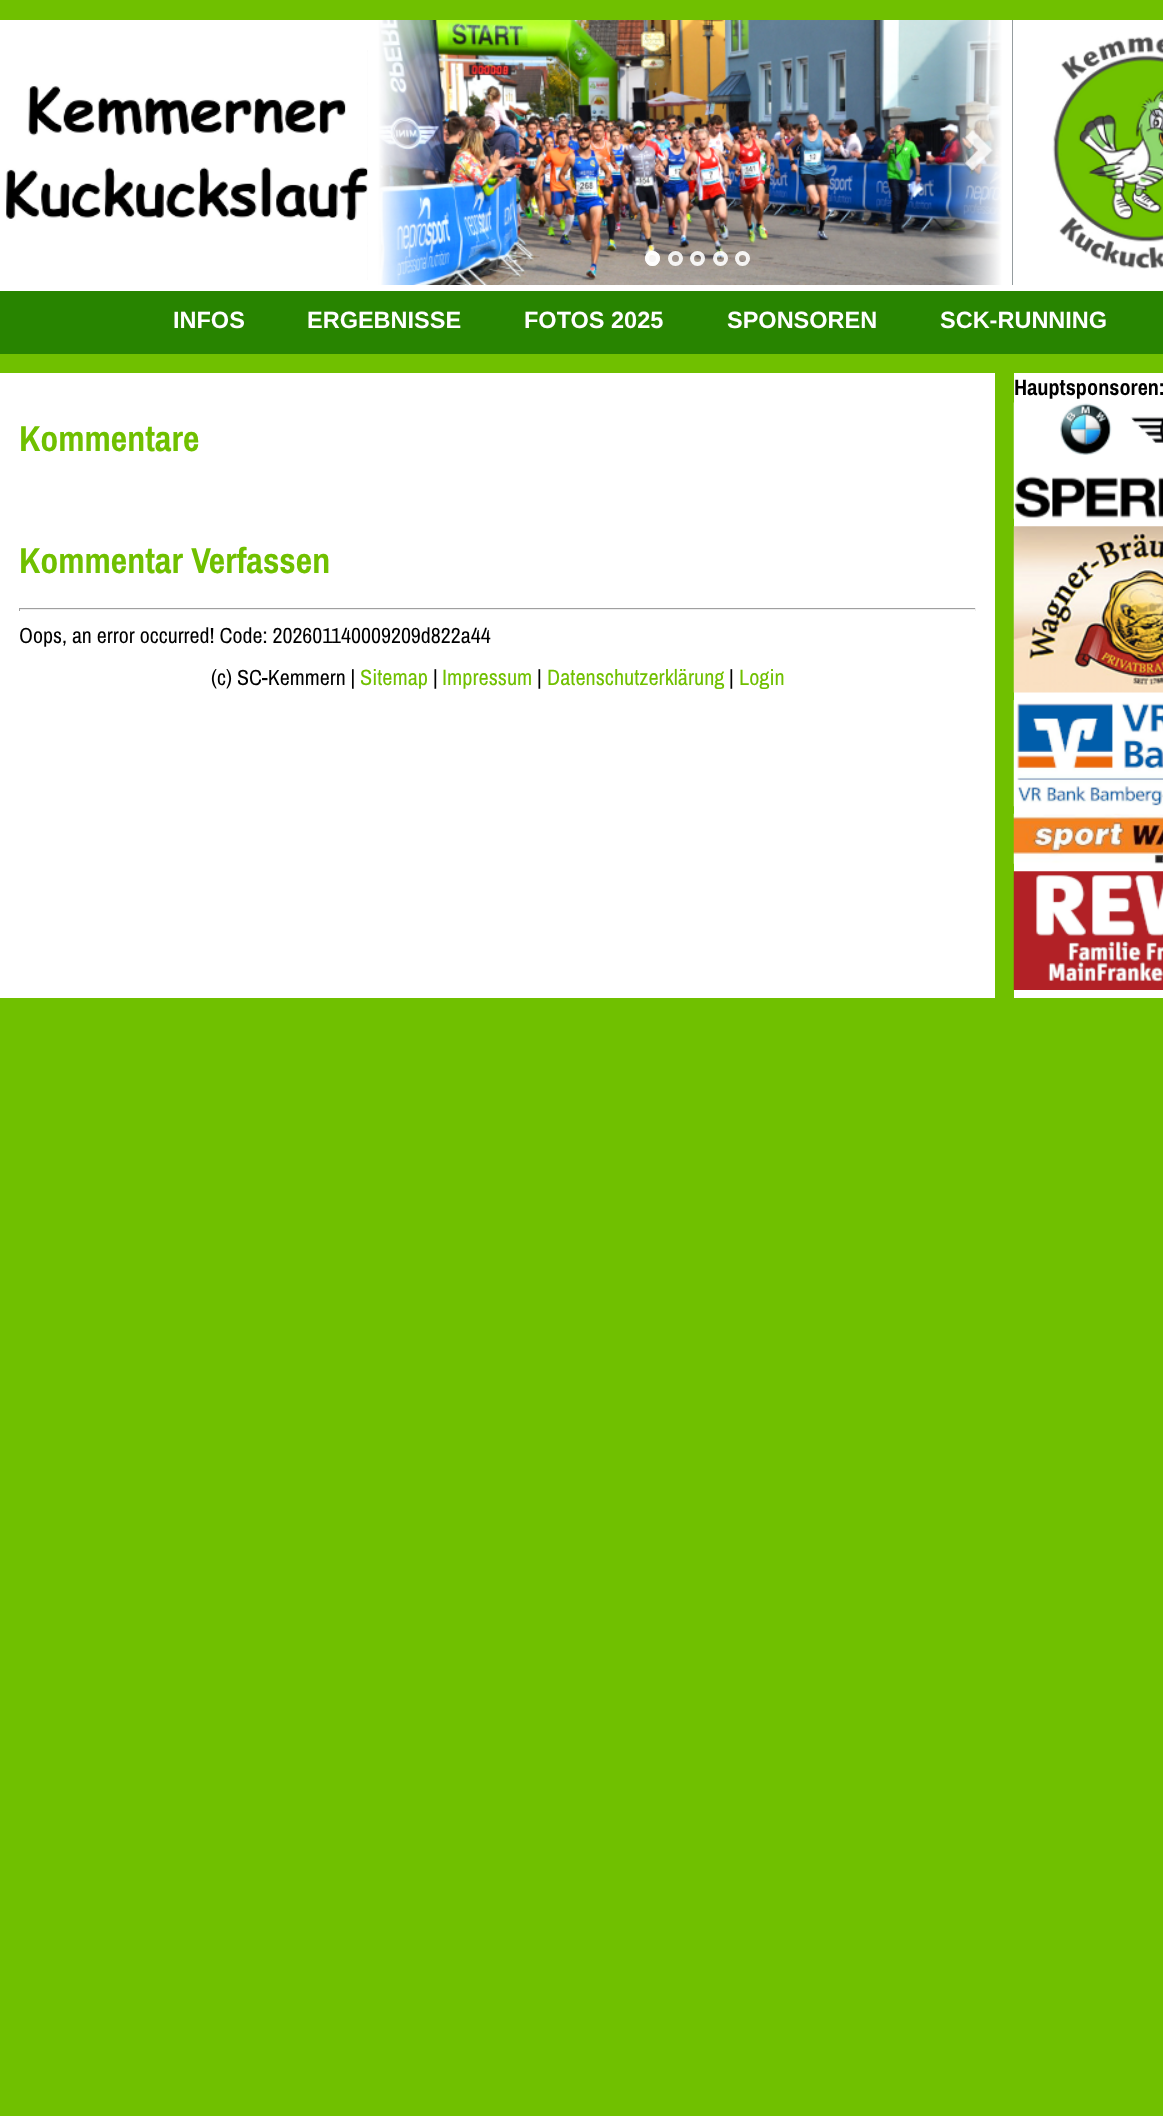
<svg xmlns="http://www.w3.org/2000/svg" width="1163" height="2116">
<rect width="100%" height="100%" fill="#70c000"/>
<rect y="20" width="1163" height="271" fill="#fff"/>
<image x="6" y="86" width="362" height="135" href="media/1.png"/>
<rect x="1012" y="20" width="1" height="265" fill="#727b7f"/>
<image x="367" y="50" width="1" height="230" href="media/2.png"/>
<image x="367" y="20" width="646" height="265" href="media/3.png"/>
<image x="964" y="130" width="29" height="42" href="media/4.png"/>
<circle cx="652.5" cy="258.5" r="7.5" fill="#ffffffe6"/>
<circle cx="652.5" cy="258.5" r="5.5" fill="none" stroke="#ffffffe6" stroke-width="4"/>
<circle cx="675.5" cy="258.5" r="5.5" fill="none" stroke="#ffffffe6" stroke-width="4"/>
<circle cx="697.5" cy="258.5" r="5.5" fill="none" stroke="#ffffffe6" stroke-width="4"/>
<circle cx="720.5" cy="258.5" r="5.5" fill="none" stroke="#ffffffe6" stroke-width="4"/>
<circle cx="742.5" cy="258.5" r="5.5" fill="none" stroke="#ffffffe6" stroke-width="4"/>
<image x="1052" y="36" width="111" height="233" href="media/5.png"/>
<rect y="291" width="1163" height="63" fill="#288400"/>
<text x="173" y="328" style="font-family:Liberation Sans;font-size:23.5px;font-weight:bold;fill:#fff">INFOS</text>
<text x="307" y="328" style="font-family:Liberation Sans;font-size:23.5px;font-weight:bold;fill:#fff">ERGEBNISSE</text>
<text x="524" y="328" style="font-family:Liberation Sans;font-size:23.5px;font-weight:bold;fill:#fff">FOTOS 2025</text>
<text x="727" y="328" style="font-family:Liberation Sans;font-size:23.5px;font-weight:bold;fill:#fff">SPONSOREN</text>
<text x="940" y="328" style="font-family:Liberation Sans;font-size:23.5px;font-weight:bold;fill:#fff">SCK-RUNNING</text>
<rect x="1014" y="373" width="149" height="625" fill="#fff"/>
<text x="1014" y="395" style="font-family:Archivo Narrow;font-size:22.25px;font-weight:bold;fill:#000">Hauptsponsoren:</text>
<image x="1013" y="402" width="150" height="117" href="media/6.png"/>
<image x="1013" y="526" width="150" height="167" href="media/7.png"/>
<image x="1013" y="700" width="150" height="107" href="media/8.png"/>
<image x="1013" y="813" width="150" height="51" href="media/9.png"/>
<image x="1013" y="871" width="150" height="119" href="media/10.png"/>
<rect y="373" width="995" height="625" fill="#fff"/>
<text x="19" y="451" style="font-family:Archivo Narrow;font-size:36px;font-weight:bold;fill:#70c000">Kommentare</text>
<text x="19" y="573" style="font-family:Archivo Narrow;font-size:36px;font-weight:bold;fill:#70c000">Kommentar Verfassen</text>
<rect x="19" y="608" width="957" height="1" fill="#9f9f9f"/>
<rect x="975" y="608" width="1" height="3" fill="#eee"/>
<rect x="19" y="609" width="957" height="1" fill="#eee"/>
<rect x="19" y="608" width="1" height="3" fill="#9f9f9f"/>
<text x="19" y="643" style="font-family:Archivo Narrow;font-size:21.9px;fill:#000">Oops, an error occurred! Code: 202601140009209d822a44</text>
<text x="211" y="685" style="font-family:Archivo Narrow;font-size:21.9px;fill:#000">(c) SC-Kemmern |</text>
<text x="360" y="685" style="font-family:Archivo Narrow;font-size:22.25px;fill:#70c000">Sitemap</text>
<text x="433" y="685" style="font-family:Archivo Narrow;font-size:21.9px;fill:#000">|</text>
<text x="442" y="685" style="font-family:Archivo Narrow;font-size:22.25px;fill:#70c000">Impressum</text>
<text x="537" y="685" style="font-family:Archivo Narrow;font-size:21.9px;fill:#000">|</text>
<text x="547" y="685" style="font-family:Archivo Narrow;font-size:22.25px;fill:#70c000">Datenschutzerklärung</text>
<text x="729" y="685" style="font-family:Archivo Narrow;font-size:21.9px;fill:#000">|</text>
<text x="739" y="685" style="font-family:Archivo Narrow;font-size:22.25px;fill:#70c000">Login</text>
</svg>
